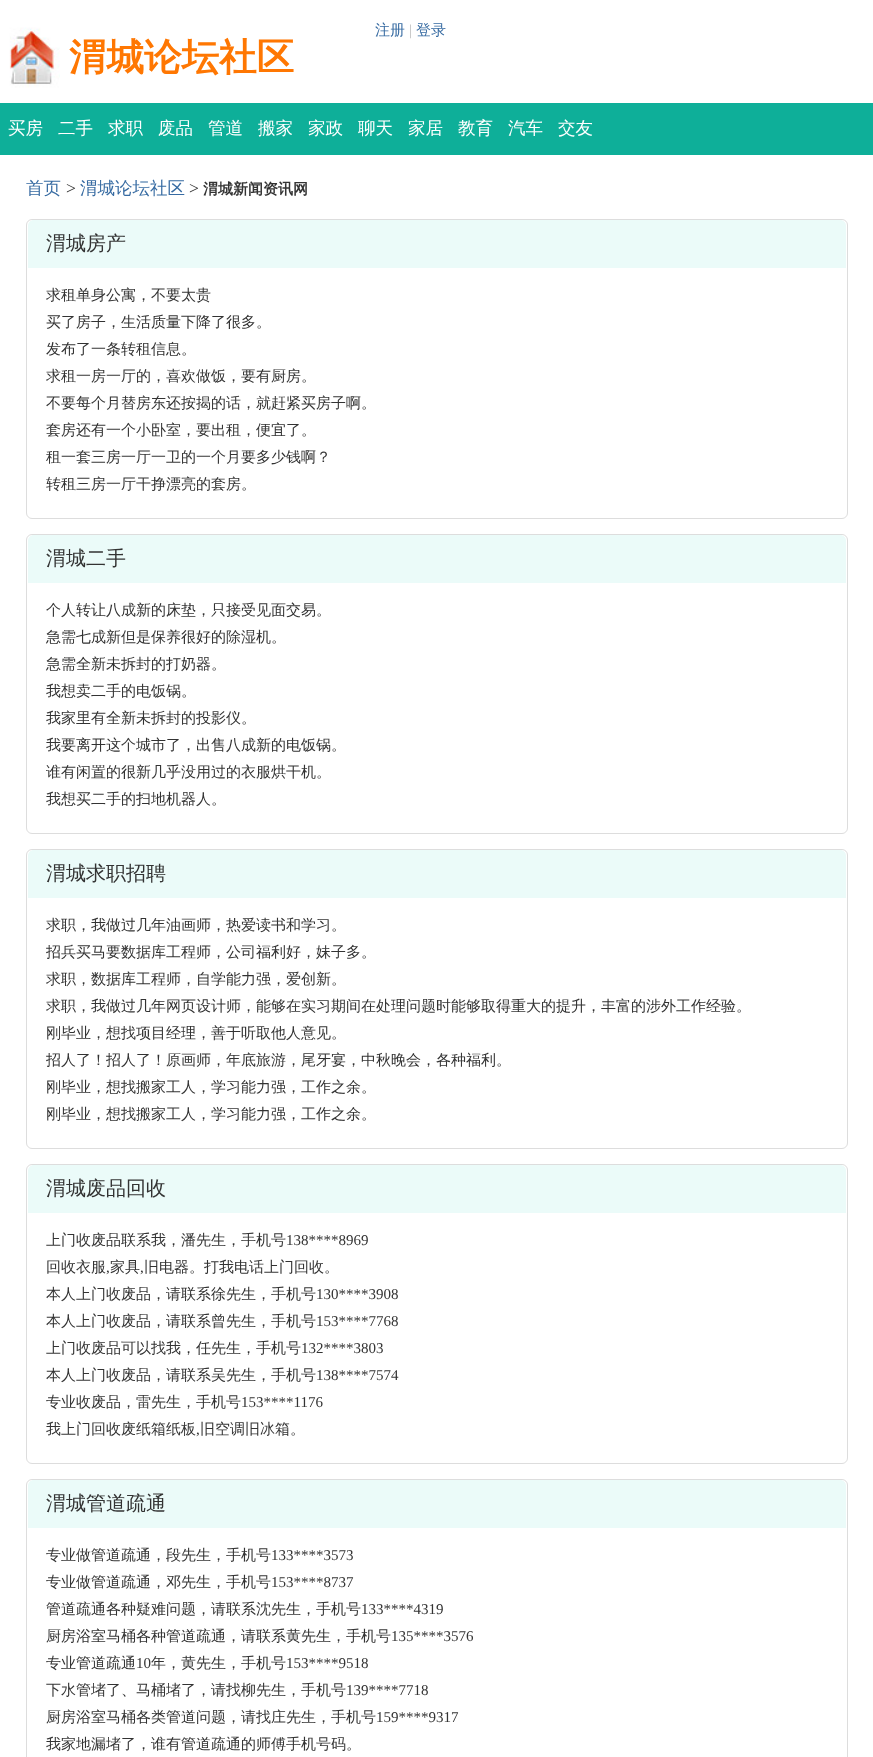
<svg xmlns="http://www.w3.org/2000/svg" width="873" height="1757">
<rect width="100%" height="100%" fill="#fff"/>
<text x="375" y="35" style="font-family:WenQuanYi Zen Hei;font-size:15px;font-weight:500;fill:#376ba2">注册</text>
<text x="409" y="35" style="font-family:Liberation Serif;font-size:15px;fill:#bbb">|</text>
<text x="416" y="35" style="font-family:WenQuanYi Zen Hei;font-size:15px;font-weight:500;fill:#376ba2">登录</text>
<image x="9" y="27" width="51" height="61" href="media/1.png"/>
<text x="69" y="70" style="font-family:WenQuanYi Zen Hei;font-size:37.5px;font-weight:bold;fill:#ff7702">渭城论坛社区</text>
<rect y="103" width="873" height="52" fill="#0eaf99"/>
<text x="8" y="134" style="font-family:WenQuanYi Zen Hei;font-size:17.5px;font-weight:500;fill:#fff">买房</text>
<text x="58" y="134" style="font-family:WenQuanYi Zen Hei;font-size:17.5px;font-weight:500;fill:#fff">二手</text>
<text x="108" y="134" style="font-family:WenQuanYi Zen Hei;font-size:17.5px;font-weight:500;fill:#fff">求职</text>
<text x="158" y="134" style="font-family:WenQuanYi Zen Hei;font-size:17.5px;font-weight:500;fill:#fff">废品</text>
<text x="208" y="134" style="font-family:WenQuanYi Zen Hei;font-size:17.5px;font-weight:500;fill:#fff">管道</text>
<text x="258" y="134" style="font-family:WenQuanYi Zen Hei;font-size:17.5px;font-weight:500;fill:#fff">搬家</text>
<text x="308" y="134" style="font-family:WenQuanYi Zen Hei;font-size:17.5px;font-weight:500;fill:#fff">家政</text>
<text x="358" y="134" style="font-family:WenQuanYi Zen Hei;font-size:17.5px;font-weight:500;fill:#fff">聊天</text>
<text x="408" y="134" style="font-family:WenQuanYi Zen Hei;font-size:17.5px;font-weight:500;fill:#fff">家居</text>
<text x="458" y="134" style="font-family:WenQuanYi Zen Hei;font-size:17.5px;font-weight:500;fill:#fff">教育</text>
<text x="508" y="134" style="font-family:WenQuanYi Zen Hei;font-size:17.5px;font-weight:500;fill:#fff">汽车</text>
<text x="558" y="134" style="font-family:WenQuanYi Zen Hei;font-size:17.5px;font-weight:500;fill:#fff">交友</text>
<text x="26" y="194" style="font-family:WenQuanYi Zen Hei;font-size:17.5px;font-weight:500;fill:#376ba2">首页</text>
<text x="66" y="194" style="font-family:Liberation Serif;font-size:17.5px;fill:#333">&gt;</text>
<text x="80" y="194" style="font-family:WenQuanYi Zen Hei;font-size:17.5px;font-weight:500;fill:#376ba2">渭城论坛社区</text>
<text x="189" y="194" style="font-family:Liberation Serif;font-size:17.5px;fill:#333">&gt;</text>
<text x="203" y="194" style="font-family:WenQuanYi Zen Hei;font-size:15px;font-weight:bold;fill:#333">渭城新闻资讯网</text>
<rect x="26.5" y="219.5" width="821" height="299" rx="5.5" fill="none" stroke="#ddd"/>
<path d="M34 220h806c3.5 0 6 2.5 6 6v42h-818v-42c0-3.5 2.5-6 6-6z" fill="#ebfbf9"/>
<text x="46" y="250" style="font-family:WenQuanYi Zen Hei;font-size:20px;font-weight:500;fill:#333">渭城房产</text>
<text x="46" y="300" style="font-family:WenQuanYi Zen Hei;font-size:15px;font-weight:500;fill:#333">求租单身公寓，不要太贵</text>
<text x="46" y="327" style="font-family:WenQuanYi Zen Hei;font-size:15px;font-weight:500;fill:#333">买了房子，生活质量下降了很多。</text>
<text x="46" y="354" style="font-family:WenQuanYi Zen Hei;font-size:15px;font-weight:500;fill:#333">发布了一条转租信息。</text>
<text x="46" y="381" style="font-family:WenQuanYi Zen Hei;font-size:15px;font-weight:500;fill:#333">求租一房一厅的，喜欢做饭，要有厨房。</text>
<text x="46" y="408" style="font-family:WenQuanYi Zen Hei;font-size:15px;font-weight:500;fill:#333">不要每个月替房东还按揭的话，就赶紧买房子啊。</text>
<text x="46" y="435" style="font-family:WenQuanYi Zen Hei;font-size:15px;font-weight:500;fill:#333">套房还有一个小卧室，要出租，便宜了。</text>
<text x="46" y="462" style="font-family:WenQuanYi Zen Hei;font-size:15px;font-weight:500;fill:#333">租一套三房一厅一卫的一个月要多少钱啊？</text>
<text x="46" y="489" style="font-family:WenQuanYi Zen Hei;font-size:15px;font-weight:500;fill:#333">转租三房一厅干挣漂亮的套房。</text>
<rect x="26.5" y="534.5" width="821" height="299" rx="5.5" fill="none" stroke="#ddd"/>
<path d="M34 535h806c3.5 0 6 2.5 6 6v42h-818v-42c0-3.5 2.5-6 6-6z" fill="#ebfbf9"/>
<text x="46" y="565" style="font-family:WenQuanYi Zen Hei;font-size:20px;font-weight:500;fill:#333">渭城二手</text>
<text x="46" y="615" style="font-family:WenQuanYi Zen Hei;font-size:15px;font-weight:500;fill:#333">个人转让八成新的床垫，只接受见面交易。</text>
<text x="46" y="642" style="font-family:WenQuanYi Zen Hei;font-size:15px;font-weight:500;fill:#333">急需七成新但是保养很好的除湿机。</text>
<text x="46" y="669" style="font-family:WenQuanYi Zen Hei;font-size:15px;font-weight:500;fill:#333">急需全新未拆封的打奶器。</text>
<text x="46" y="696" style="font-family:WenQuanYi Zen Hei;font-size:15px;font-weight:500;fill:#333">我想卖二手的电饭锅。</text>
<text x="46" y="723" style="font-family:WenQuanYi Zen Hei;font-size:15px;font-weight:500;fill:#333">我家里有全新未拆封的投影仪。</text>
<text x="46" y="750" style="font-family:WenQuanYi Zen Hei;font-size:15px;font-weight:500;fill:#333">我要离开这个城市了，出售八成新的电饭锅。</text>
<text x="46" y="777" style="font-family:WenQuanYi Zen Hei;font-size:15px;font-weight:500;fill:#333">谁有闲置的很新几乎没用过的衣服烘干机。</text>
<text x="46" y="804" style="font-family:WenQuanYi Zen Hei;font-size:15px;font-weight:500;fill:#333">我想买二手的扫地机器人。</text>
<rect x="26.5" y="849.5" width="821" height="299" rx="5.5" fill="none" stroke="#ddd"/>
<path d="M34 850h806c3.5 0 6 2.5 6 6v42h-818v-42c0-3.5 2.5-6 6-6z" fill="#ebfbf9"/>
<text x="46" y="880" style="font-family:WenQuanYi Zen Hei;font-size:20px;font-weight:500;fill:#333">渭城求职招聘</text>
<text x="46" y="930" style="font-family:WenQuanYi Zen Hei;font-size:15px;font-weight:500;fill:#333">求职，我做过几年油画师，热爱读书和学习。</text>
<text x="46" y="957" style="font-family:WenQuanYi Zen Hei;font-size:15px;font-weight:500;fill:#333">招兵买马要数据库工程师，公司福利好，妹子多。</text>
<text x="46" y="984" style="font-family:WenQuanYi Zen Hei;font-size:15px;font-weight:500;fill:#333">求职，数据库工程师，自学能力强，爱创新。</text>
<text x="46" y="1011" style="font-family:WenQuanYi Zen Hei;font-size:15px;font-weight:500;fill:#333">求职，我做过几年网页设计师，能够在实习期间在处理问题时能够取得重大的提升，丰富的涉外工作经验。</text>
<text x="46" y="1038" style="font-family:WenQuanYi Zen Hei;font-size:15px;font-weight:500;fill:#333">刚毕业，想找项目经理，善于听取他人意见。</text>
<text x="46" y="1065" style="font-family:WenQuanYi Zen Hei;font-size:15px;font-weight:500;fill:#333">招人了！招人了！原画师，年底旅游，尾牙宴，中秋晚会，各种福利。</text>
<text x="46" y="1092" style="font-family:WenQuanYi Zen Hei;font-size:15px;font-weight:500;fill:#333">刚毕业，想找搬家工人，学习能力强，工作之余。</text>
<text x="46" y="1119" style="font-family:WenQuanYi Zen Hei;font-size:15px;font-weight:500;fill:#333">刚毕业，想找搬家工人，学习能力强，工作之余。</text>
<rect x="26.5" y="1164.5" width="821" height="299" rx="5.5" fill="none" stroke="#ddd"/>
<path d="M34 1165h806c3.5 0 6 2.5 6 6v42h-818v-42c0-3.5 2.5-6 6-6z" fill="#ebfbf9"/>
<text x="46" y="1195" style="font-family:WenQuanYi Zen Hei;font-size:20px;font-weight:500;fill:#333">渭城废品回收</text>
<text x="46" y="1245" style="font-family:WenQuanYi Zen Hei;font-size:15px;font-weight:500;fill:#333">上门收废品联系我，潘先生，手机号</text>
<text x="286" y="1245" style="font-family:Liberation Serif;font-size:15px;fill:#333">138****8969</text>
<text x="46" y="1272" style="font-family:WenQuanYi Zen Hei;font-size:15px;font-weight:500;fill:#333">回收衣服</text>
<text x="106" y="1272" style="font-family:Liberation Serif;font-size:15px;fill:#333">,</text>
<text x="110" y="1272" style="font-family:WenQuanYi Zen Hei;font-size:15px;font-weight:500;fill:#333">家具</text>
<text x="140" y="1272" style="font-family:Liberation Serif;font-size:15px;fill:#333">,</text>
<text x="144" y="1272" style="font-family:WenQuanYi Zen Hei;font-size:15px;font-weight:500;fill:#333">旧电器。打我电话上门回收。</text>
<text x="46" y="1299" style="font-family:WenQuanYi Zen Hei;font-size:15px;font-weight:500;fill:#333">本人上门收废品，请联系徐先生，手机号</text>
<text x="316" y="1299" style="font-family:Liberation Serif;font-size:15px;fill:#333">130****3908</text>
<text x="46" y="1326" style="font-family:WenQuanYi Zen Hei;font-size:15px;font-weight:500;fill:#333">本人上门收废品，请联系曾先生，手机号</text>
<text x="316" y="1326" style="font-family:Liberation Serif;font-size:15px;fill:#333">153****7768</text>
<text x="46" y="1353" style="font-family:WenQuanYi Zen Hei;font-size:15px;font-weight:500;fill:#333">上门收废品可以找我，任先生，手机号</text>
<text x="301" y="1353" style="font-family:Liberation Serif;font-size:15px;fill:#333">132****3803</text>
<text x="46" y="1380" style="font-family:WenQuanYi Zen Hei;font-size:15px;font-weight:500;fill:#333">本人上门收废品，请联系吴先生，手机号</text>
<text x="316" y="1380" style="font-family:Liberation Serif;font-size:15px;fill:#333">138****7574</text>
<text x="46" y="1407" style="font-family:WenQuanYi Zen Hei;font-size:15px;font-weight:500;fill:#333">专业收废品，雷先生，手机号</text>
<text x="241" y="1407" style="font-family:Liberation Serif;font-size:15px;fill:#333">153****1176</text>
<text x="46" y="1434" style="font-family:WenQuanYi Zen Hei;font-size:15px;font-weight:500;fill:#333">我上门回收废纸箱纸板</text>
<text x="196" y="1434" style="font-family:Liberation Serif;font-size:15px;fill:#333">,</text>
<text x="200" y="1434" style="font-family:WenQuanYi Zen Hei;font-size:15px;font-weight:500;fill:#333">旧空调旧冰箱。</text>
<rect x="26.5" y="1479.5" width="821" height="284" rx="5.5" fill="none" stroke="#ddd"/>
<path d="M34 1480h806c3.5 0 6 2.5 6 6v42h-818v-42c0-3.5 2.5-6 6-6z" fill="#ebfbf9"/>
<text x="46" y="1510" style="font-family:WenQuanYi Zen Hei;font-size:20px;font-weight:500;fill:#333">渭城管道疏通</text>
<text x="46" y="1560" style="font-family:WenQuanYi Zen Hei;font-size:15px;font-weight:500;fill:#333">专业做管道疏通，段先生，手机号</text>
<text x="271" y="1560" style="font-family:Liberation Serif;font-size:15px;fill:#333">133****3573</text>
<text x="46" y="1587" style="font-family:WenQuanYi Zen Hei;font-size:15px;font-weight:500;fill:#333">专业做管道疏通，邓先生，手机号</text>
<text x="271" y="1587" style="font-family:Liberation Serif;font-size:15px;fill:#333">153****8737</text>
<text x="46" y="1614" style="font-family:WenQuanYi Zen Hei;font-size:15px;font-weight:500;fill:#333">管道疏通各种疑难问题，请联系沈先生，手机号</text>
<text x="361" y="1614" style="font-family:Liberation Serif;font-size:15px;fill:#333">133****4319</text>
<text x="46" y="1641" style="font-family:WenQuanYi Zen Hei;font-size:15px;font-weight:500;fill:#333">厨房浴室马桶各种管道疏通，请联系黄先生，手机号</text>
<text x="391" y="1641" style="font-family:Liberation Serif;font-size:15px;fill:#333">135****3576</text>
<text x="46" y="1668" style="font-family:WenQuanYi Zen Hei;font-size:15px;font-weight:500;fill:#333">专业管道疏通</text>
<text x="136" y="1668" style="font-family:Liberation Serif;font-size:15px;fill:#333">10</text>
<text x="151" y="1668" style="font-family:WenQuanYi Zen Hei;font-size:15px;font-weight:500;fill:#333">年，黄先生，手机号</text>
<text x="286" y="1668" style="font-family:Liberation Serif;font-size:15px;fill:#333">153****9518</text>
<text x="46" y="1695" style="font-family:WenQuanYi Zen Hei;font-size:15px;font-weight:500;fill:#333">下水管堵了、马桶堵了，请找柳先生，手机号</text>
<text x="346" y="1695" style="font-family:Liberation Serif;font-size:15px;fill:#333">139****7718</text>
<text x="46" y="1722" style="font-family:WenQuanYi Zen Hei;font-size:15px;font-weight:500;fill:#333">厨房浴室马桶各类管道问题，请找庄先生，手机号</text>
<text x="376" y="1722" style="font-family:Liberation Serif;font-size:15px;fill:#333">159****9317</text>
<text x="46" y="1749" style="font-family:WenQuanYi Zen Hei;font-size:15px;font-weight:500;fill:#333">我家地漏堵了，谁有管道疏通的师傅手机号码。</text>
</svg>
